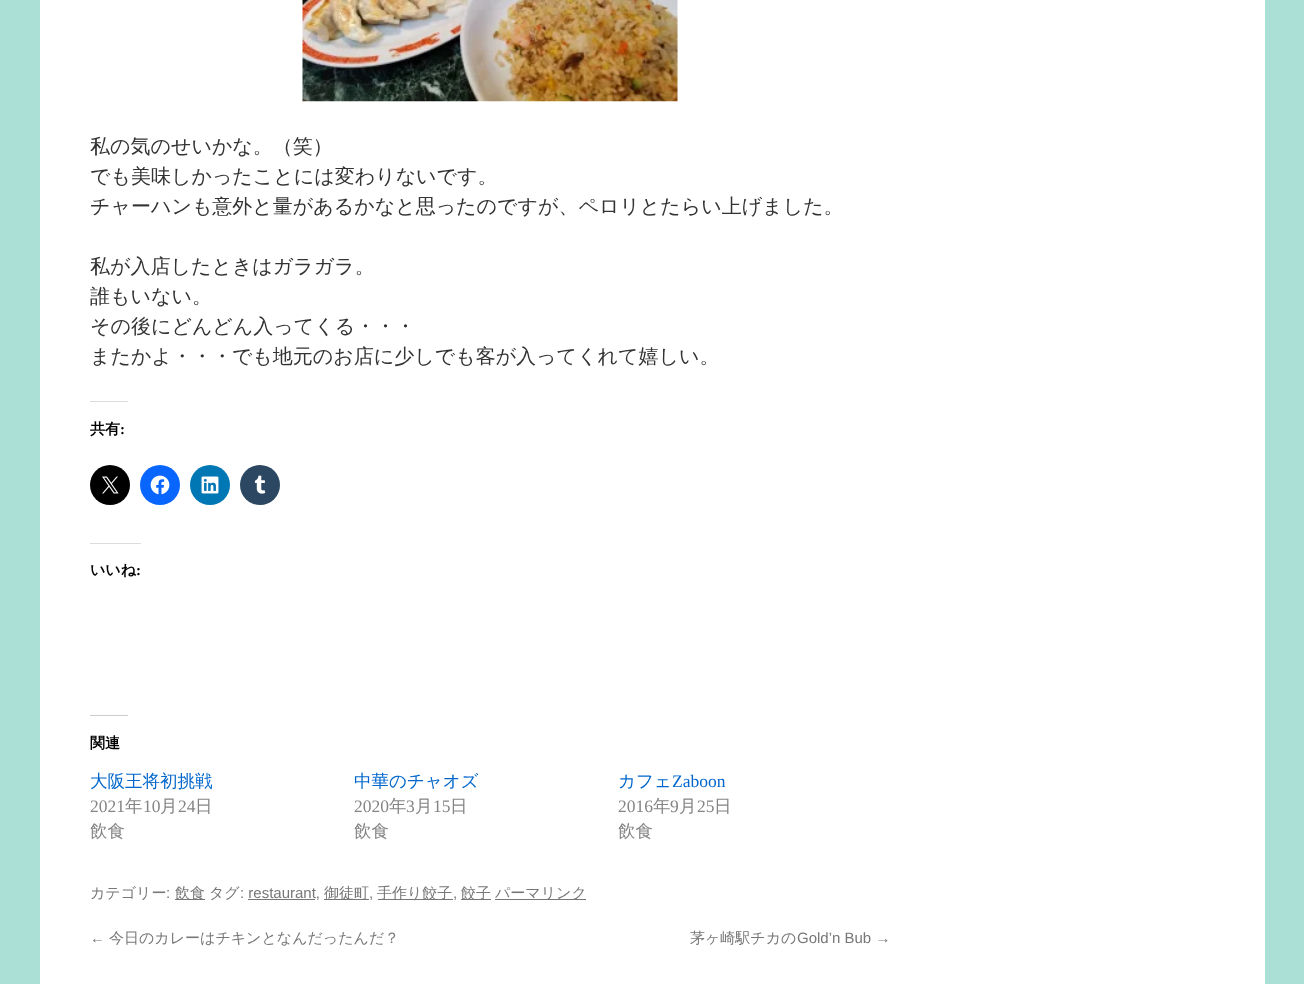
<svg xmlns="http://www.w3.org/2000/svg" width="1304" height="984">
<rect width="100%" height="100%" fill="#aae0d6"/>
<rect x="40" width="1225" height="984" fill="#fff"/>
<image x="302" y="0" width="376" height="102" href="media/1.png"/>
<text x="90" y="153" style="font-family:WenQuanYi Zen Hei;font-size:20px;font-weight:500;fill:#333">私の気のせいかな。（笑）</text>
<text x="90" y="183" style="font-family:WenQuanYi Zen Hei;font-size:20px;font-weight:500;fill:#333">でも美味しかったことには変わりないです。</text>
<text x="90" y="213" style="font-family:WenQuanYi Zen Hei;font-size:20px;font-weight:500;fill:#333">チャーハンも意外と量があるかなと思ったのですが、ペロリとたらい上げました。</text>
<text x="90" y="273" style="font-family:WenQuanYi Zen Hei;font-size:20px;font-weight:500;fill:#333">私が入店したときはガラガラ。</text>
<text x="90" y="303" style="font-family:WenQuanYi Zen Hei;font-size:20px;font-weight:500;fill:#333">誰もいない。</text>
<text x="90" y="333" style="font-family:WenQuanYi Zen Hei;font-size:20px;font-weight:500;fill:#333">その後にどんどん入ってくる・・・</text>
<text x="90" y="363" style="font-family:WenQuanYi Zen Hei;font-size:20px;font-weight:500;fill:#333">またかよ・・・でも地元のお店に少しでも客が入ってくれて嬉しい。</text>
<rect x="90" y="401" width="38" height="1" fill="#dcdcde"/>
<text x="90" y="434" style="font-family:WenQuanYi Zen Hei;font-size:15px;font-weight:bold;fill:#000">共有</text>
<text x="120" y="434" style="font-family:Liberation Serif;font-size:15px;font-weight:bold;fill:#000">:</text>
<circle cx="110" cy="485" r="20" fill="#000"/>
<image x="102" y="476" width="17" height="18" href="media/2.png"/>
<circle cx="160" cy="485" r="20" fill="#0866ff"/>
<image x="150" y="475" width="20" height="20" href="media/3.png"/>
<circle cx="210" cy="485" r="20" fill="#0077b5"/>
<image x="201" y="476" width="18" height="18" href="media/4.png"/>
<circle cx="260" cy="485" r="20" fill="#2c4762"/>
<image x="254" y="475" width="12" height="19" href="media/5.png"/>
<rect x="90" y="543" width="51" height="1" fill="#dcdcde"/>
<text x="90" y="575" style="font-family:WenQuanYi Zen Hei;font-size:15px;font-weight:bold;fill:#000">いいね</text>
<text x="136" y="575" style="font-family:Liberation Serif;font-size:15px;font-weight:bold;fill:#000">:</text>
<rect x="90" y="715" width="38" height="1" fill="#ccc"/>
<text x="90" y="748" style="font-family:WenQuanYi Zen Hei;font-size:15px;font-weight:bold;fill:#000">関連</text>
<text x="90" y="787" style="font-family:WenQuanYi Zen Hei;font-size:17.5px;font-weight:500;fill:#06c">大阪王将初挑戦</text>
<text x="90" y="812" style="font-family:Liberation Serif;font-size:17.5px;fill:#858585">2021</text>
<text x="125" y="812" style="font-family:WenQuanYi Zen Hei;font-size:17.5px;font-weight:500;fill:#858585">年</text>
<text x="143" y="812" style="font-family:Liberation Serif;font-size:17.5px;fill:#858585">10</text>
<text x="160" y="812" style="font-family:WenQuanYi Zen Hei;font-size:17.5px;font-weight:500;fill:#858585">月</text>
<text x="178" y="812" style="font-family:Liberation Serif;font-size:17.5px;fill:#858585">24</text>
<text x="195" y="812" style="font-family:WenQuanYi Zen Hei;font-size:17.5px;font-weight:500;fill:#858585">日</text>
<text x="90" y="837" style="font-family:WenQuanYi Zen Hei;font-size:17.5px;font-weight:500;fill:#858585">飲食</text>
<text x="354" y="787" style="font-family:WenQuanYi Zen Hei;font-size:17.5px;font-weight:500;fill:#06c">中華のチャオズ</text>
<text x="354" y="812" style="font-family:Liberation Serif;font-size:17.5px;fill:#858585">2020</text>
<text x="389" y="812" style="font-family:WenQuanYi Zen Hei;font-size:17.5px;font-weight:500;fill:#858585">年</text>
<text x="406" y="812" style="font-family:Liberation Serif;font-size:17.5px;fill:#858585">3</text>
<text x="415" y="812" style="font-family:WenQuanYi Zen Hei;font-size:17.5px;font-weight:500;fill:#858585">月</text>
<text x="433" y="812" style="font-family:Liberation Serif;font-size:17.5px;fill:#858585">15</text>
<text x="450" y="812" style="font-family:WenQuanYi Zen Hei;font-size:17.5px;font-weight:500;fill:#858585">日</text>
<text x="354" y="837" style="font-family:WenQuanYi Zen Hei;font-size:17.5px;font-weight:500;fill:#858585">飲食</text>
<text x="618" y="787" style="font-family:WenQuanYi Zen Hei;font-size:17.5px;font-weight:500;fill:#06c">カフェ</text>
<text x="672" y="787" style="font-family:Liberation Serif;font-size:17.5px;fill:#06c">Zaboon</text>
<text x="618" y="812" style="font-family:Liberation Serif;font-size:17.5px;fill:#858585">2016</text>
<text x="653" y="812" style="font-family:WenQuanYi Zen Hei;font-size:17.5px;font-weight:500;fill:#858585">年</text>
<text x="670" y="812" style="font-family:Liberation Serif;font-size:17.5px;fill:#858585">9</text>
<text x="679" y="812" style="font-family:WenQuanYi Zen Hei;font-size:17.5px;font-weight:500;fill:#858585">月</text>
<text x="697" y="812" style="font-family:Liberation Serif;font-size:17.5px;fill:#858585">25</text>
<text x="714" y="812" style="font-family:WenQuanYi Zen Hei;font-size:17.5px;font-weight:500;fill:#858585">日</text>
<text x="618" y="837" style="font-family:WenQuanYi Zen Hei;font-size:17.5px;font-weight:500;fill:#858585">飲食</text>
<text x="90" y="898" style="font-family:WenQuanYi Zen Hei;font-size:15px;font-weight:500;fill:#777">カテゴリー</text>
<text x="166" y="898" style="font-family:Liberation Sans;font-size:15px;fill:#777">:</text>
<rect x="175" y="899" width="30" height="1" fill="#777"/>
<text x="175" y="898" style="font-family:WenQuanYi Zen Hei;font-size:15px;font-weight:500;fill:#777">飲食</text>
<text x="209" y="898" style="font-family:WenQuanYi Zen Hei;font-size:15px;font-weight:500;fill:#777">タグ</text>
<text x="240" y="898" style="font-family:Liberation Sans;font-size:15px;fill:#777">: restaurant,</text>
<rect x="324" y="899" width="45" height="1" fill="#777"/>
<text x="324" y="898" style="font-family:WenQuanYi Zen Hei;font-size:15px;font-weight:500;fill:#777">御徒町</text>
<text x="369" y="898" style="font-family:Liberation Sans;font-size:15px;fill:#777">,</text>
<rect x="378" y="899" width="75" height="1" fill="#777"/>
<text x="377" y="898" style="font-family:WenQuanYi Zen Hei;font-size:15px;font-weight:500;fill:#777">手作り餃子</text>
<text x="453" y="898" style="font-family:Liberation Sans;font-size:15px;fill:#777">,</text>
<rect x="461" y="899" width="30" height="1" fill="#777"/>
<text x="461" y="898" style="font-family:WenQuanYi Zen Hei;font-size:15px;font-weight:500;fill:#777">餃子</text>
<rect x="495" y="899" width="91" height="1" fill="#777"/>
<text x="495" y="898" style="font-family:WenQuanYi Zen Hei;font-size:15px;font-weight:500;fill:#777">パーマリンク</text>
<rect x="248" y="899" width="67" height="1" fill="#777"/>
<text x="90" y="943" style="font-family:Liberation Sans;font-size:15px;fill:#777">←</text>
<text x="109" y="943" style="font-family:WenQuanYi Zen Hei;font-size:15px;font-weight:500;fill:#777">今日のカレーはチキンとなんだったんだ？</text>
<text x="690" y="943" style="font-family:WenQuanYi Zen Hei;font-size:15px;font-weight:500;fill:#777">茅ヶ崎駅チカの</text>
<text x="797" y="943" style="font-family:Liberation Sans;font-size:15px;fill:#777">Gold’n Bub →</text>
</svg>
